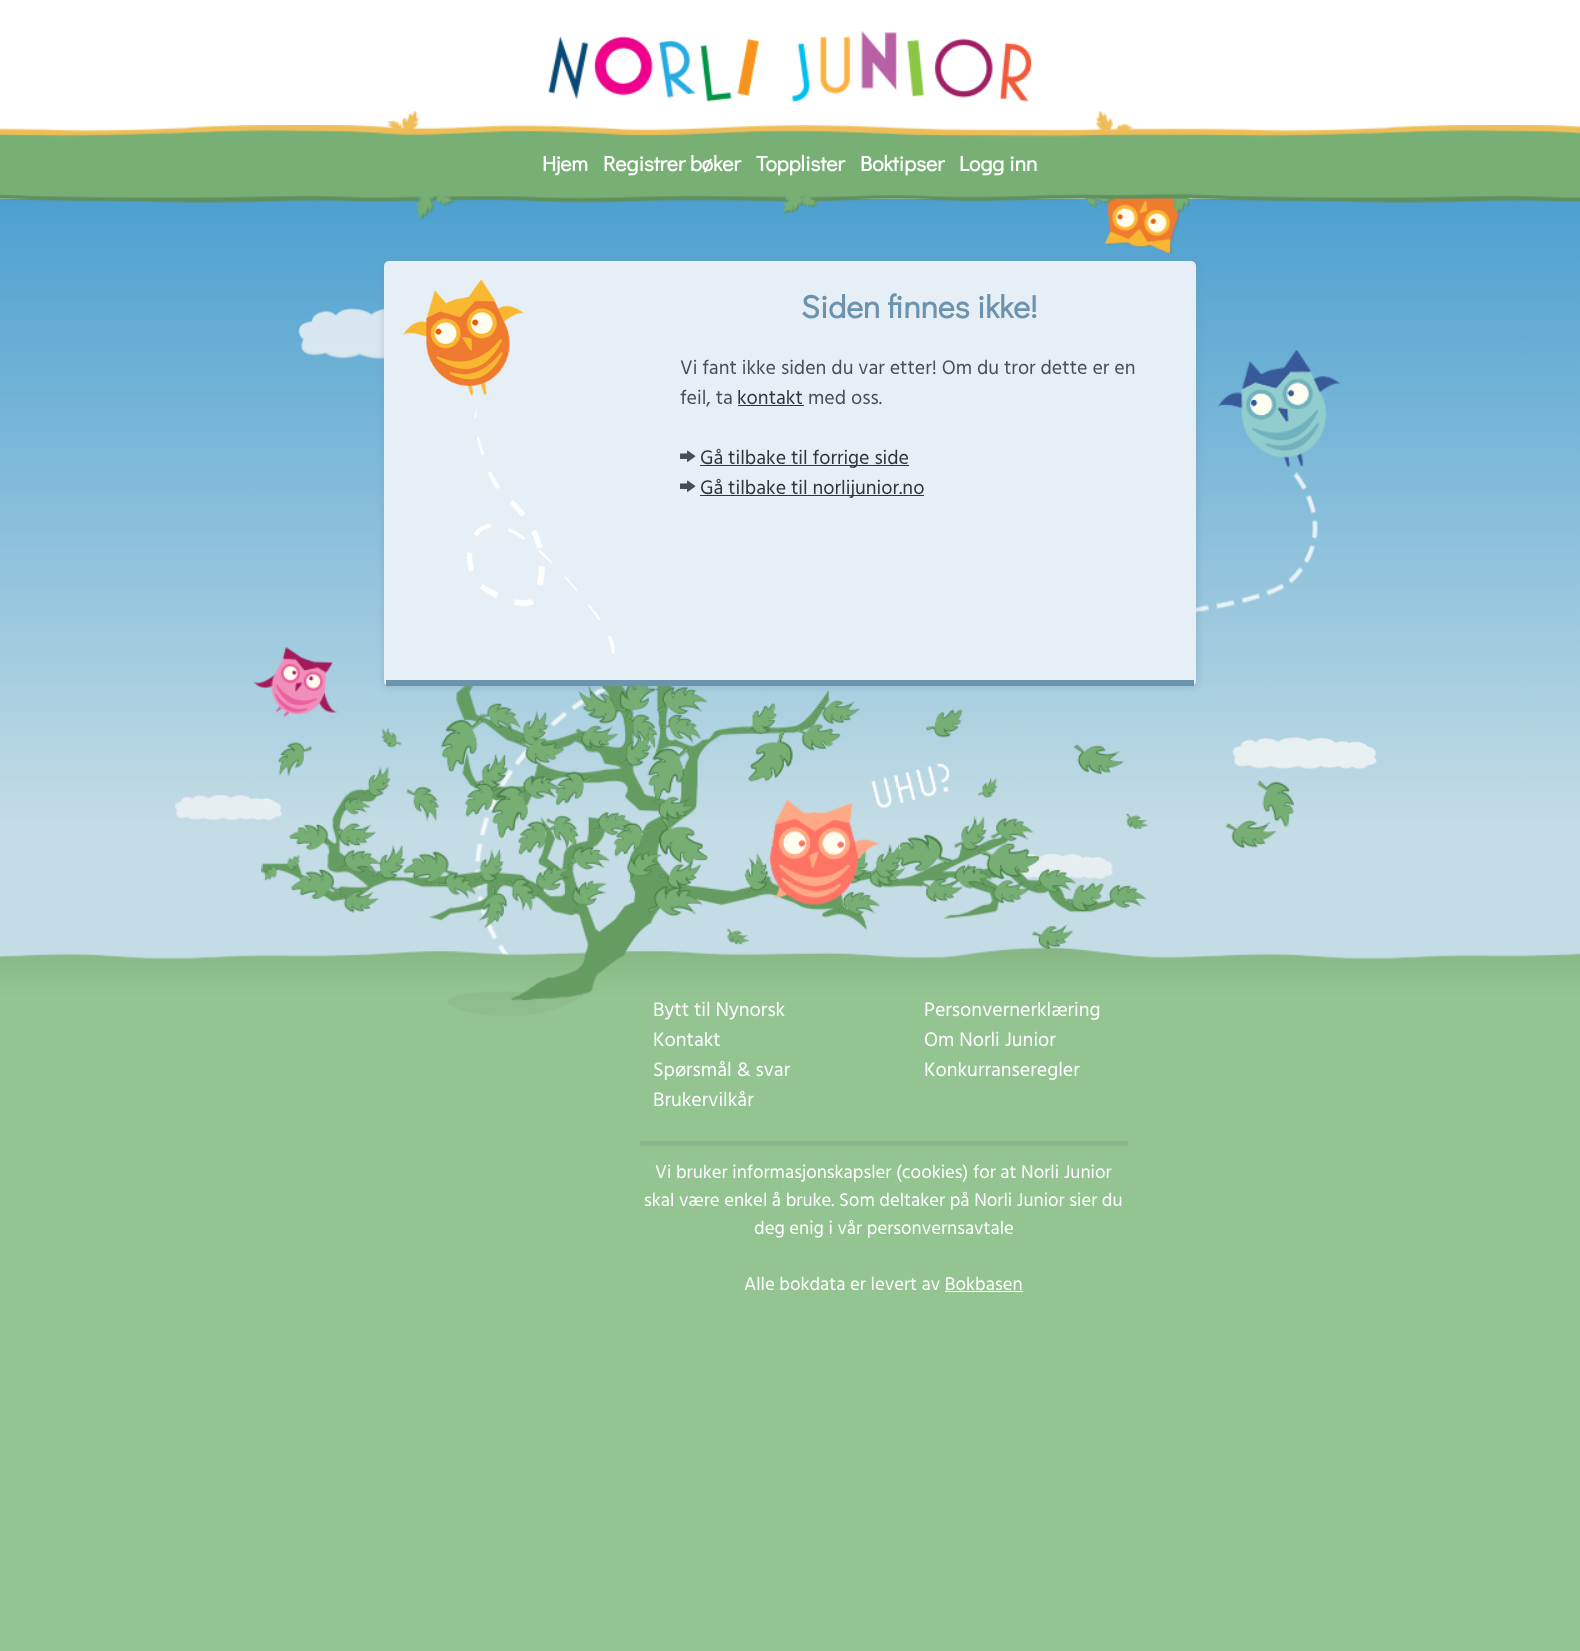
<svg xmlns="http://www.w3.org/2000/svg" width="1580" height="1651">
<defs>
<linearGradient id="g1" gradientUnits="userSpaceOnUse" x1="790" y1="0" x2="790" y2="1651"><stop offset="0.48" stop-color="#fff"/><stop offset="0.49" stop-color="#94c492"/></linearGradient>
<linearGradient id="g2" gradientUnits="userSpaceOnUse" x1="790" y1="199" x2="790" y2="1059"><stop offset="0" stop-color="#4ca0d0"/><stop offset="0.73" stop-color="#c3dce5"/></linearGradient>
</defs>
<rect width="100%" height="100%" fill="#fff"/>
<rect y="793" width="1580" height="858" fill="url(#g1)"/>
<image x="548" y="31" width="484" height="71" href="media/1.png"/>
<image x="386" y="111" width="34" height="18" href="media/2.png"/>
<image x="1095" y="111" width="39" height="20" href="media/3.png"/>
<rect y="199" width="1580" height="760" fill="url(#g2)"/>
<image x="1104" y="197" width="76" height="57" href="media/8.png"/>
<image x="1084" y="197" width="107" height="18" href="media/7.png"/>
<image x="0" y="125" width="1580" height="78" href="media/4.png"/>
<text x="542" y="171" style="font-family:Didact Gothic;font-size:21.25px;font-weight:bold;fill:#fff">Hjem</text>
<text x="603" y="171" style="font-family:Didact Gothic;font-size:21.25px;font-weight:bold;fill:#fff">Registrer bøker</text>
<text x="756" y="171" style="font-family:Didact Gothic;font-size:21.25px;font-weight:bold;fill:#fff">Topplister</text>
<text x="860" y="171" style="font-family:Didact Gothic;font-size:21.25px;font-weight:bold;fill:#fff">Boktipser</text>
<text x="959" y="171" style="font-family:Didact Gothic;font-size:21.25px;font-weight:bold;fill:#fff">Logg inn</text>
<image x="416" y="196" width="39" height="24" href="media/5.png"/>
<image x="782" y="195" width="37" height="19" href="media/6.png"/>
<image x="298" y="308" width="86" height="52" href="media/12.png"/>
<image x="475" y="472" width="843" height="484" href="media/14.png"/>
<image x="1232" y="737" width="145" height="33" href="media/16.png"/>
<image x="175" y="795" width="107" height="26" href="media/17.png"/>
<image x="1007" y="853" width="106" height="26" href="media/18.png"/>
<image x="0" y="947" width="1580" height="49" href="media/19.png"/>
<image x="261" y="686" width="1033" height="330" href="media/15.png"/>
<rect x="383" y="260" width="815" height="428" rx="6" fill="#6c93ad4d" filter="blur(3px)"/>
<rect x="384" y="261" width="812" height="425" rx="5" fill="#e6eff5"/>
<rect x="386" y="680" width="808" height="6" fill="#6c93ad"/>
<image x="403" y="280" width="212" height="374" href="media/9.png"/>
<text x="801" y="318" style="font-family:Didact Gothic;font-size:32px;font-weight:bold;fill:#6c93ad">Siden finnes ikke!</text>
<text x="680" y="374" style="font-family:Hind;font-size:20px;fill:#444f57">Vi fant ikke siden du var etter! Om du tror dette er en</text>
<text x="680" y="404" style="font-family:Hind;font-size:20px;fill:#444f57">feil, ta</text>
<text x="737" y="404" style="font-family:Hind;font-size:20px;fill:#2e353a">kontakt</text>
<rect x="738" y="405" width="66" height="1" fill="#2e353a"/>
<text x="808" y="404" style="font-family:Hind;font-size:20px;fill:#444f57">med oss.</text>
<image x="680" y="450" width="16" height="12" href="media/10.png"/>
<rect x="700" y="465" width="209" height="1" fill="#2e353a"/>
<text x="700" y="464" style="font-family:Hind;font-size:20px;fill:#2e353a">Gå tilbake til forrige side</text>
<image x="680" y="480" width="16" height="12" href="media/10.png"/>
<rect x="700" y="495" width="224" height="1" fill="#2e353a"/>
<text x="700" y="494" style="font-family:Hind;font-size:20px;fill:#2e353a">Gå tilbake til norlijunior.no</text>
<image x="253" y="647" width="85" height="70" href="media/11.png"/>
<image x="1217" y="350" width="126" height="118" href="media/13.png"/>
<text x="653" y="1016" style="font-family:Hind;font-size:20px;fill:#fff">Bytt til Nynorsk</text>
<text x="653" y="1046" style="font-family:Hind;font-size:20px;fill:#fff">Kontakt</text>
<text x="653" y="1076" style="font-family:Hind;font-size:20px;fill:#fff">Spørsmål &amp; svar</text>
<text x="653" y="1106" style="font-family:Hind;font-size:20px;fill:#fff">Brukervilkår</text>
<text x="924" y="1016" style="font-family:Hind;font-size:20px;fill:#fff">Personvernerklæring</text>
<text x="924" y="1046" style="font-family:Hind;font-size:20px;fill:#fff">Om Norli Junior</text>
<text x="924" y="1076" style="font-family:Hind;font-size:20px;fill:#fff">Konkurranseregler</text>
<rect x="640" y="1141" width="488" height="5" fill="#8bb68d"/>
<text x="655" y="1178" style="font-family:Hind;font-size:18.75px;fill:#fff">Vi bruker informasjonskapsler (cookies) for at Norli Junior</text>
<text x="644" y="1206" style="font-family:Hind;font-size:18.75px;fill:#fff">skal være enkel å bruke. Som deltaker på Norli Junior sier du</text>
<text x="754" y="1234" style="font-family:Hind;font-size:18.75px;fill:#fff">deg enig i vår personvernsavtale</text>
<text x="744" y="1290" style="font-family:Hind;font-size:18.75px;fill:#fff">Alle bokdata er levert av Bokbasen</text>
<rect x="945" y="1291" width="78" height="1" fill="#fff"/>
</svg>
